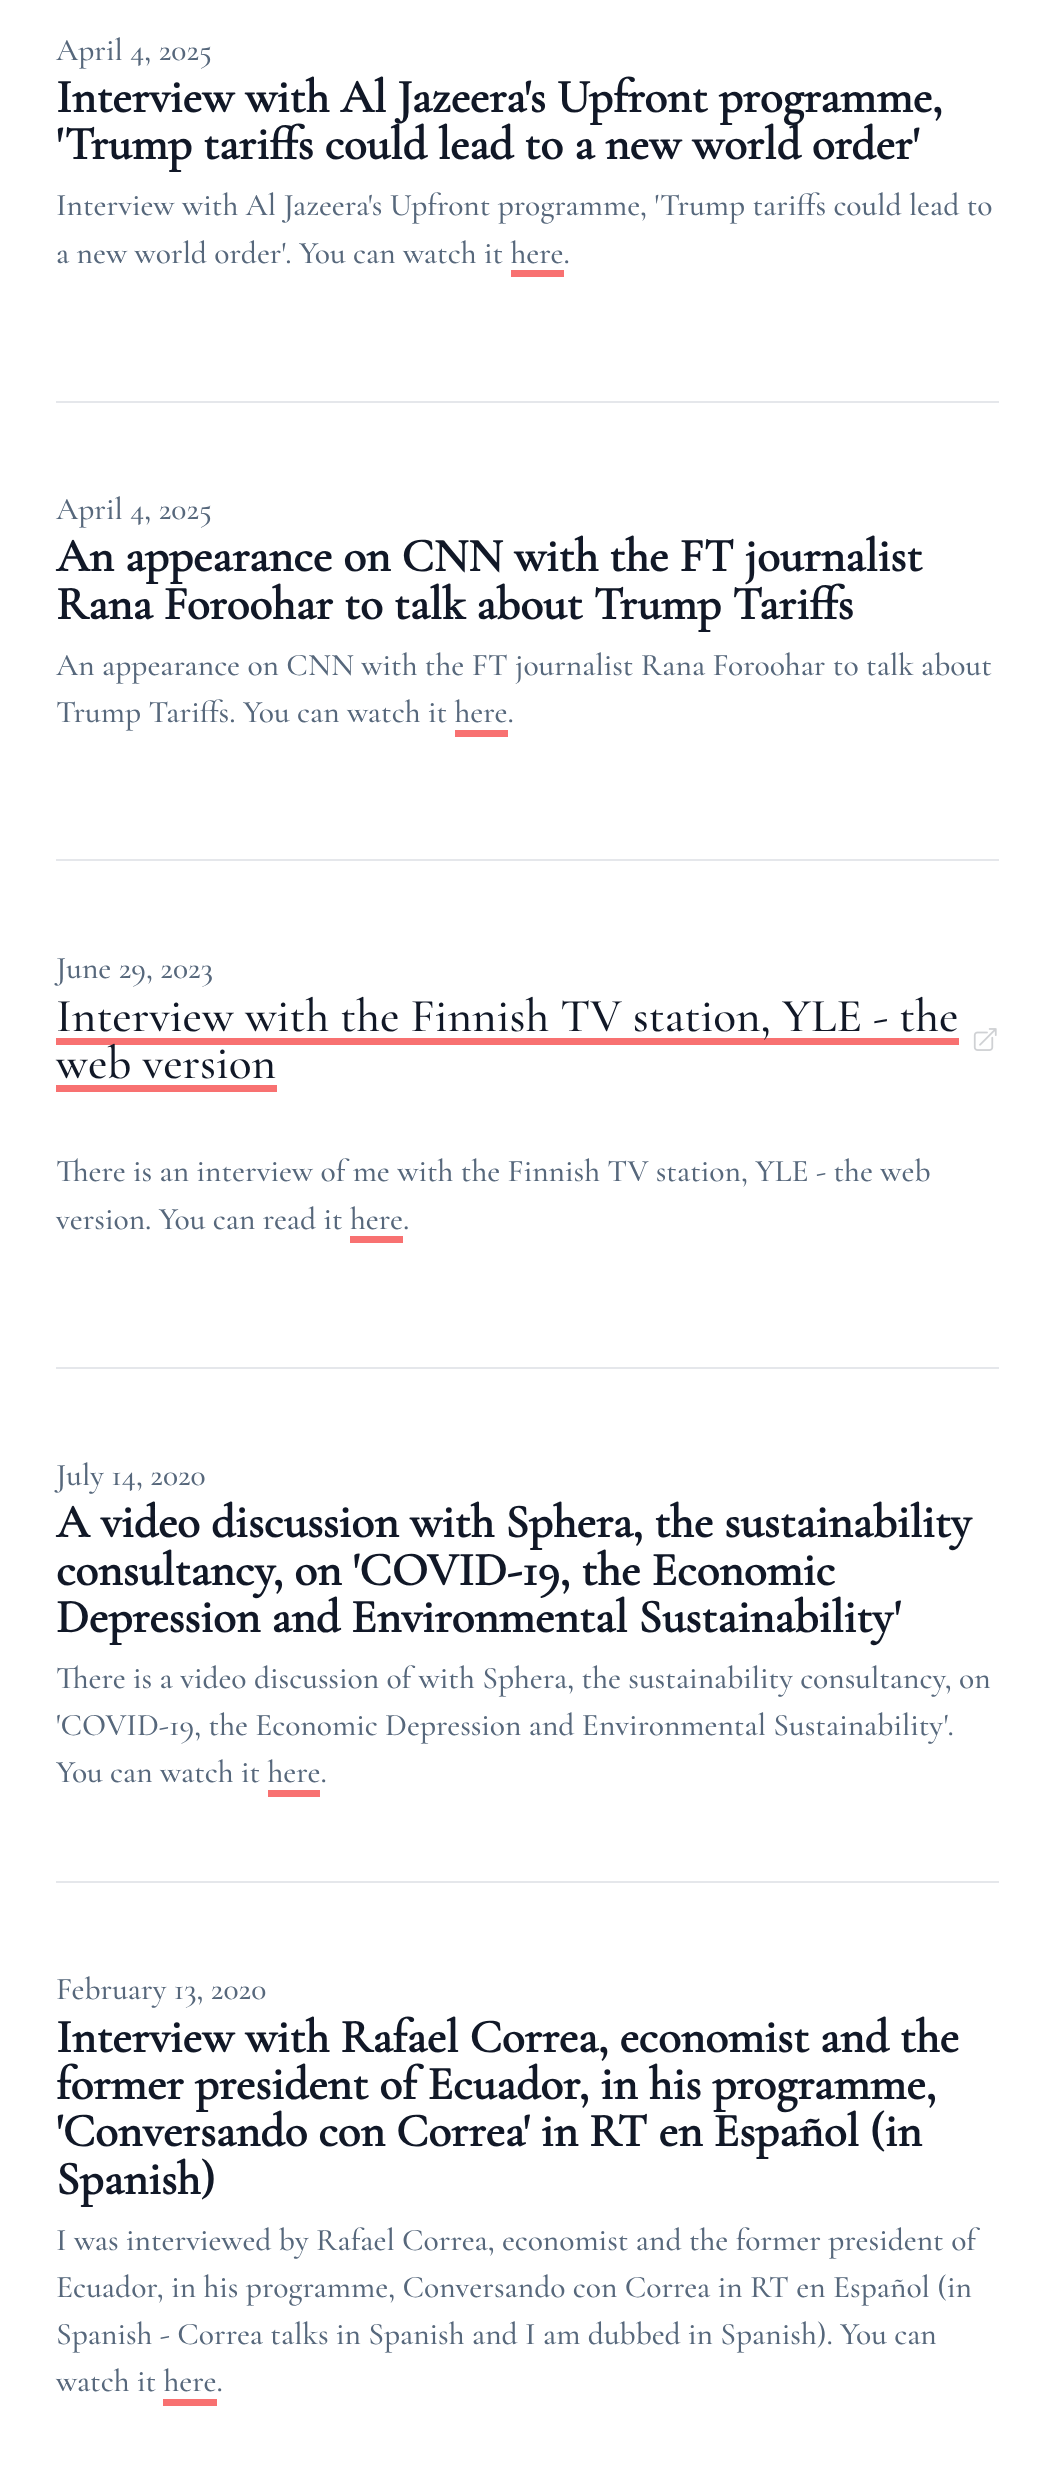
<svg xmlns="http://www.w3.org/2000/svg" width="1054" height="2469">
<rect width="100%" height="100%" fill="#fff"/>
<text x="56" y="60" style="font-family:Cormorant Garamond;font-size:31.5px;font-weight:300;fill:#57687c">April 4, 2025</text>
<text x="56" y="112" style="font-family:Cormorant Garamond;font-size:47.25px;font-weight:bold;fill:#111827">Interview with Al Jazeera's Upfront programme,</text>
<text x="56" y="159" style="font-family:Cormorant Garamond;font-size:47.25px;font-weight:bold;fill:#111827">'Trump tariffs could lead to a new world order'</text>
<text x="56" y="215" style="font-family:Cormorant Garamond;font-size:31.5px;font-weight:300;fill:#57687c">Interview with Al Jazeera's Upfront programme, 'Trump tariffs could lead to</text>
<text x="56" y="263" style="font-family:Cormorant Garamond;font-size:31.5px;font-weight:300;fill:#57687c">a new world order'. You can watch it here.</text>
<rect x="511" y="270" width="53" height="7" fill="#f87171"/>
<rect x="56" y="401" width="943" height="2" fill="#e5e7eb"/>
<text x="56" y="519" style="font-family:Cormorant Garamond;font-size:31.5px;font-weight:300;fill:#57687c">April 4, 2025</text>
<text x="56" y="571" style="font-family:Cormorant Garamond;font-size:47.25px;font-weight:bold;fill:#111827">An appearance on CNN with the FT journalist</text>
<text x="56" y="619" style="font-family:Cormorant Garamond;font-size:47.25px;font-weight:bold;fill:#111827">Rana Foroohar to talk about Trump Tariffs</text>
<text x="56" y="675" style="font-family:Cormorant Garamond;font-size:31.5px;font-weight:300;fill:#57687c">An appearance on CNN with the FT journalist Rana Foroohar to talk about</text>
<text x="56" y="722" style="font-family:Cormorant Garamond;font-size:31.5px;font-weight:300;fill:#57687c">Trump Tariffs. You can watch it here.</text>
<rect x="455" y="730" width="53" height="7" fill="#f87171"/>
<rect x="56" y="859" width="943" height="2" fill="#e5e7eb"/>
<text x="56" y="978" style="font-family:Cormorant Garamond;font-size:31.5px;font-weight:300;fill:#57687c">June 29, 2023</text>
<rect x="56" y="1038" width="903" height="7" fill="#f87171"/>
<text x="56" y="1031" style="font-family:Cormorant Garamond;font-size:47.25px;font-weight:300;fill:#111827">Interview with the Finnish TV station, YLE - the</text>
<image x="973" y="1028" width="24" height="23" href="media/1.png"/>
<text x="56" y="1078" style="font-family:Cormorant Garamond;font-size:47.25px;font-weight:300;fill:#111827">web version</text>
<rect x="56" y="1085" width="221" height="7" fill="#f87171"/>
<text x="56" y="1181" style="font-family:Cormorant Garamond;font-size:31.5px;font-weight:300;fill:#57687c">There is an interview of me with the Finnish TV station, YLE - the web</text>
<text x="56" y="1229" style="font-family:Cormorant Garamond;font-size:31.5px;font-weight:300;fill:#57687c">version. You can read it here.</text>
<rect x="350" y="1236" width="53" height="7" fill="#f87171"/>
<rect x="56" y="1367" width="943" height="2" fill="#e5e7eb"/>
<text x="56" y="1485" style="font-family:Cormorant Garamond;font-size:31.5px;font-weight:300;fill:#57687c">July 14, 2020</text>
<text x="56" y="1537" style="font-family:Cormorant Garamond;font-size:47.25px;font-weight:bold;fill:#111827">A video discussion with Sphera, the sustainability</text>
<text x="56" y="1585" style="font-family:Cormorant Garamond;font-size:47.25px;font-weight:bold;fill:#111827">consultancy, on 'COVID-19, the Economic</text>
<text x="56" y="1632" style="font-family:Cormorant Garamond;font-size:47.25px;font-weight:bold;fill:#111827">Depression and Environmental Sustainability'</text>
<text x="56" y="1688" style="font-family:Cormorant Garamond;font-size:31.5px;font-weight:300;fill:#57687c">There is a video discussion of with Sphera, the sustainability consultancy, on</text>
<text x="56" y="1735" style="font-family:Cormorant Garamond;font-size:31.5px;font-weight:300;fill:#57687c">'COVID-19, the Economic Depression and Environmental Sustainability'.</text>
<text x="56" y="1782" style="font-family:Cormorant Garamond;font-size:31.5px;font-weight:300;fill:#57687c">You can watch it here.</text>
<rect x="268" y="1790" width="52" height="7" fill="#f87171"/>
<rect x="56" y="1881" width="943" height="2" fill="#e5e7eb"/>
<text x="56" y="1999" style="font-family:Cormorant Garamond;font-size:31.5px;font-weight:300;fill:#57687c">February 13, 2020</text>
<text x="56" y="2052" style="font-family:Cormorant Garamond;font-size:47.25px;font-weight:bold;fill:#111827">Interview with Rafael Correa, economist and the</text>
<text x="56" y="2099" style="font-family:Cormorant Garamond;font-size:47.25px;font-weight:bold;fill:#111827">former president of Ecuador, in his programme,</text>
<text x="56" y="2146" style="font-family:Cormorant Garamond;font-size:47.25px;font-weight:bold;fill:#111827">'Conversando con Correa' in RT en Español (in</text>
<text x="56" y="2194" style="font-family:Cormorant Garamond;font-size:47.25px;font-weight:bold;fill:#111827">Spanish)</text>
<text x="56" y="2250" style="font-family:Cormorant Garamond;font-size:31.5px;font-weight:300;fill:#57687c">I was interviewed by Rafael Correa, economist and the former president of</text>
<text x="56" y="2297" style="font-family:Cormorant Garamond;font-size:31.5px;font-weight:300;fill:#57687c">Ecuador, in his programme, Conversando con Correa in RT en Español (in</text>
<text x="56" y="2344" style="font-family:Cormorant Garamond;font-size:31.5px;font-weight:300;fill:#57687c">Spanish - Correa talks in Spanish and I am dubbed in Spanish). You can</text>
<text x="56" y="2391" style="font-family:Cormorant Garamond;font-size:31.5px;font-weight:300;fill:#57687c">watch it here.</text>
<rect x="163" y="2399" width="54" height="7" fill="#f87171"/>
</svg>
